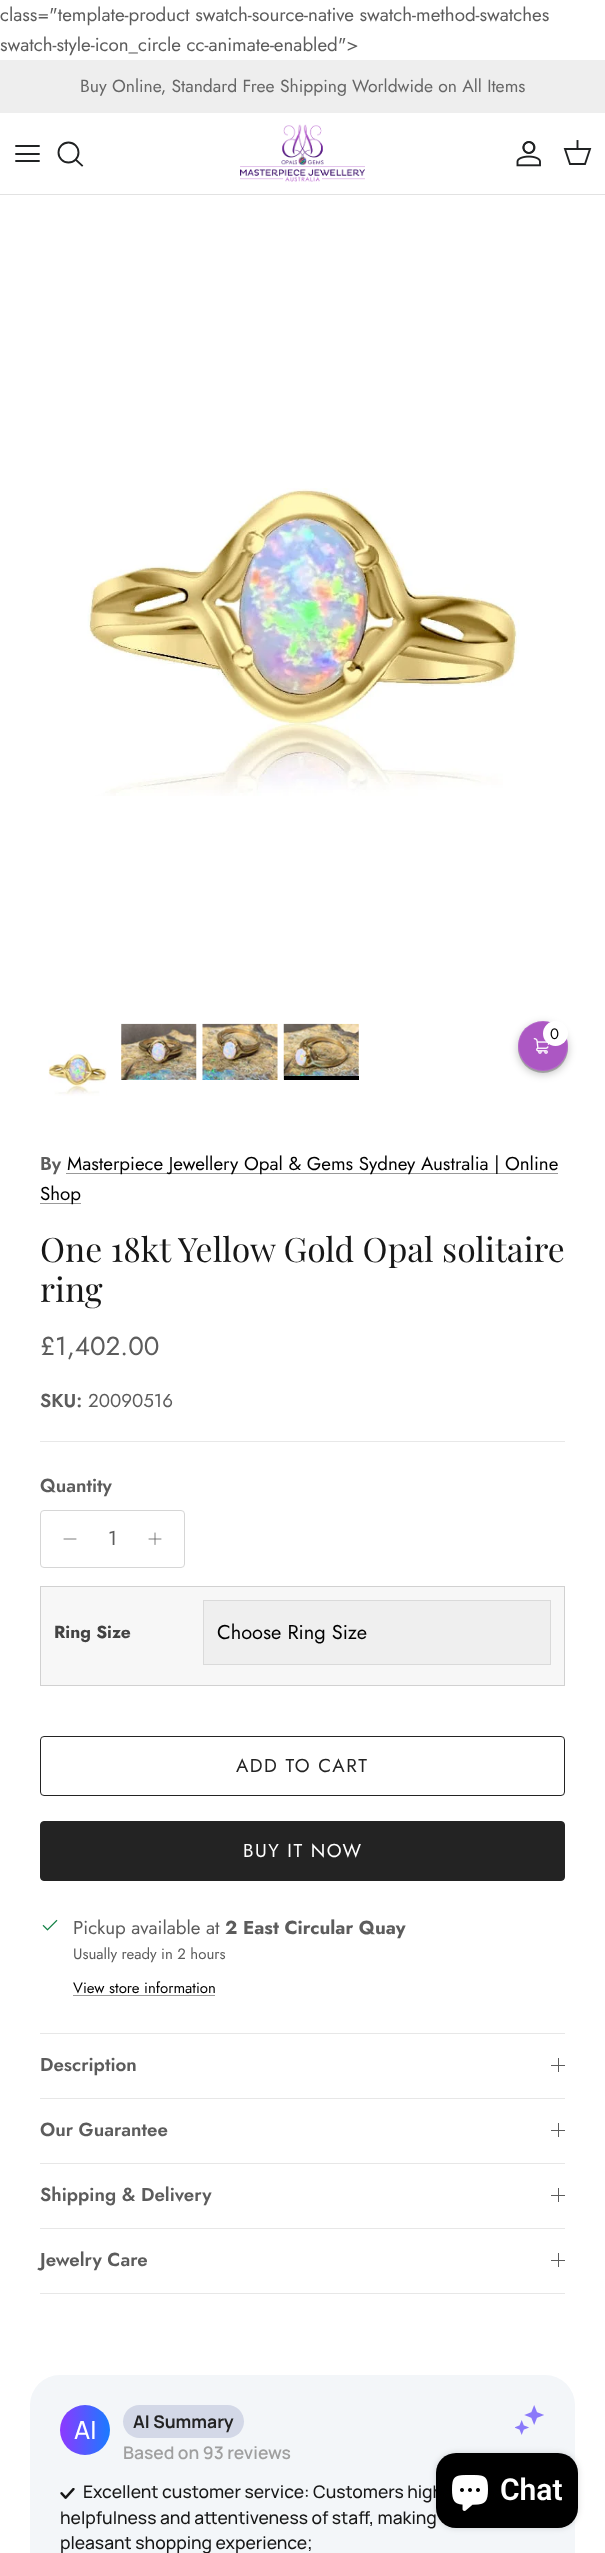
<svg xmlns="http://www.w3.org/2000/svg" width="605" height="2553">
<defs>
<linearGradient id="g1" gradientUnits="userSpaceOnUse" x1="60" y1="2430" x2="110" y2="2430"><stop offset="0" stop-color="#8d38ff"/><stop offset="1" stop-color="#197bff"/></linearGradient>
</defs>
<rect width="100%" height="100%" fill="#fff"/>
<text x="0" y="21" style="font-family:Jost;font-size:18.75px;fill:#5c5c5c">class="template-product swatch-source-native swatch-method-swatches</text>
<text x="0" y="51" style="font-family:Jost;font-size:18.75px;fill:#5c5c5c">swatch-style-icon_circle cc-animate-enabled"&gt;</text>
<rect y="60" width="605" height="53" fill="#eee"/>
<text x="80" y="92" style="font-family:Jost;font-size:17.5px;fill:#666">Buy Online, Standard Free Shipping Worldwide on All Items</text>
<rect y="194" width="605" height="1" fill="#e2e2e2"/>
<path d="M16 154h23m-23-8h23m-23 15h23" fill="none" stroke="#202223" stroke-width="1.9" stroke-linecap="round" stroke-linejoin="round"/>
<circle cx="68.5" cy="152.5" r="10" fill="none" stroke="#202223" stroke-width="1.9"/>
<path d="M76 160l6 5.5" fill="none" stroke="#202223" stroke-width="1.9" stroke-linecap="square"/>
<image x="240" y="124" width="125" height="58" href="media/1.png"/>
<image x="516" y="141" width="25" height="26" href="media/2.png"/>
<path d="M565 149h25l-5 15h-15z" fill="none" stroke="#202223" stroke-width="1.9"/>
<path d="M577.5 149v-8" fill="none" stroke="#202223" stroke-width="1.9" stroke-linecap="square"/>
<rect x="518" y="1024" width="50" height="50" rx="25" fill="#00000040" filter="blur(4.5px)"/>
<rect x="518" y="1023" width="50" height="50" rx="25" fill="#00000040" filter="blur(0.5px)"/>
<circle cx="543" cy="1046" r="25" fill="#ac57c3"/>
<circle cx="543" cy="1046" r="24.5" fill="none" stroke="#ffffff1a"/>
<image x="533" y="1038" width="17" height="16" href="media/3.png"/>
<circle cx="555.5" cy="1033.5" r="12.5" fill="#fff"/>
<text x="550" y="1039" style="font-family:Jost;font-size:15px;fill:#000">0</text>
<image x="87" y="488" width="433" height="308" href="media/4.png"/>
<image x="48" y="1053" width="59" height="43" href="media/5.png"/>
<image x="121" y="1023" width="76" height="57" href="media/6.png"/>
<image x="202" y="1023" width="76" height="57" href="media/7.png"/>
<image x="283" y="1023" width="76" height="57" href="media/8.png"/>
<rect x="284" y="1076" width="75" height="4" fill="#000"/>
<text x="40" y="1170" style="font-family:Jost;font-size:18.75px;font-weight:600;fill:#5c5c5c">By</text>
<rect x="66" y="1173" width="492" height="1" fill="#999"/>
<text x="67" y="1170" style="font-family:Jost;font-size:18.75px;fill:#000">Masterpiece Jewellery Opal &amp; Gems Sydney Australia | Online</text>
<rect x="40" y="1203" width="41" height="1" fill="#999"/>
<text x="40" y="1200" style="font-family:Jost;font-size:18.75px;fill:#000">Shop</text>
<text x="40" y="1262" style="font-family:Playfair Display;font-size:33.75px;fill:#171717">One 18kt Yellow Gold Opal solitaire</text>
<text x="40" y="1302" style="font-family:Playfair Display;font-size:33.75px;fill:#171717">ring</text>
<text x="40" y="1355" style="font-family:Jost;font-size:26px;fill:#5c5c5c">£1,402.00</text>
<text x="40" y="1407" style="font-family:Jost;font-size:18.75px;font-weight:600;fill:#5c5c5c">SKU:</text>
<text x="88" y="1407" style="font-family:Jost;font-size:18.75px;fill:#5c5c5c">20090516</text>
<rect x="40" y="1441" width="525" height="1" fill="#e8e8e8"/>
<text x="40" y="1492" style="font-family:Jost;font-size:18.75px;font-weight:600;fill:#5c5c5c">Quantity</text>
<rect x="40.5" y="1510.5" width="144" height="57" rx="3.5" fill="none" stroke="#d6d6d6"/>
<path d="M64 1539h12" fill="none" stroke="#5c5c5c" stroke-width="0.8" stroke-linecap="round" stroke-linejoin="round"/>
<text x="108" y="1545" style="font-family:Jost;font-size:20px;fill:#5c5c5c">1</text>
<path d="M155 1533v11.5m-6-5.5h12" fill="none" stroke="#5c5c5c" stroke-width="0.8" stroke-linecap="round" stroke-linejoin="round"/>
<rect x="40.5" y="1586.5" width="524" height="99" fill="#f7f7f7" stroke="#d1d1d1"/>
<text x="54" y="1638" style="font-family:Jost;font-size:17.5px;font-weight:bold;fill:#424242">Ring Size</text>
<rect x="203.5" y="1600.5" width="347" height="64" fill="#efefef" stroke="#dadada"/>
<text x="217" y="1639" style="font-family:Jost;font-size:20px;fill:#000">Choose Ring Size</text>
<rect x="40.5" y="1736.5" width="524" height="59" rx="3.5" fill="none" stroke="#232323"/>
<text x="236" y="1772" style="font-family:Jost;font-size:18.75px;letter-spacing:1.5px;fill:#232323">ADD TO CART</text>
<rect x="40.5" y="1821.5" width="524" height="59" rx="3.5" fill="#232323" stroke="#232323"/>
<text x="243" y="1857" style="font-family:Jost;font-size:18.75px;letter-spacing:1.5px;fill:#fff">BUY IT NOW</text>
<image x="42" y="1919" width="16" height="12" href="media/9.png"/>
<text x="73" y="1934" style="font-family:Jost;font-size:18.75px;fill:#5c5c5c">Pickup available at</text>
<text x="225" y="1934" style="font-family:Jost;font-size:18.75px;font-weight:bold;fill:#5c5c5c">2 East Circular Quay</text>
<text x="73" y="1959" style="font-family:Jost;font-size:15px;fill:#5c5c5c">Usually ready in 2 hours</text>
<text x="73" y="1993" style="font-family:Jost;font-size:15px;fill:#000">View store information</text>
<rect x="73" y="1995" width="142" height="1" fill="#999"/>
<rect x="40" y="2033" width="525" height="1" fill="#e7e7e7"/>
<rect x="40" y="2098" width="525" height="1" fill="#e7e7e7"/>
<text x="40" y="2071" style="font-family:Jost;font-size:18.75px;font-weight:600;fill:#5c5c5c">Description</text>
<rect x="558" y="2058" width="1" height="14" fill="#5c5c5c"/>
<rect x="551" y="2065" width="14" height="1" fill="#5c5c5c"/>
<rect x="40" y="2163" width="525" height="1" fill="#e7e7e7"/>
<text x="40" y="2136" style="font-family:Jost;font-size:18.75px;font-weight:600;fill:#5c5c5c">Our Guarantee</text>
<rect x="558" y="2123" width="1" height="14" fill="#5c5c5c"/>
<rect x="551" y="2130" width="14" height="1" fill="#5c5c5c"/>
<rect x="40" y="2228" width="525" height="1" fill="#e7e7e7"/>
<text x="40" y="2201" style="font-family:Jost;font-size:18.75px;font-weight:600;fill:#5c5c5c">Shipping &amp; Delivery</text>
<rect x="558" y="2188" width="1" height="14" fill="#5c5c5c"/>
<rect x="551" y="2195" width="14" height="1" fill="#5c5c5c"/>
<rect x="40" y="2293" width="525" height="1" fill="#e7e7e7"/>
<text x="40" y="2266" style="font-family:Jost;font-size:18.75px;font-weight:600;fill:#5c5c5c">Jewelry Care</text>
<rect x="558" y="2253" width="1" height="14" fill="#5c5c5c"/>
<rect x="551" y="2260" width="14" height="1" fill="#5c5c5c"/>
<rect x="30" y="2375" width="545" height="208" rx="30" fill="#f3f6f9"/>
<circle cx="85" cy="2430" r="25" fill="url(#g1)"/>
<text x="74" y="2439" style="font-family:Manrope;font-size:25px;font-weight:500;fill:#fff">AI</text>
<rect x="123" y="2405" width="121" height="33" rx="16.5" fill="#d3d8e7"/>
<text x="133" y="2428" style="font-family:Manrope;font-size:17.5px;font-weight:bold;fill:#232323">AI Summary</text>
<text x="123" y="2459" style="font-family:Manrope;font-size:17.5px;font-weight:600;fill:#9f9f9f">Based on 93 reviews</text>
<image x="515" y="2405" width="29" height="30" href="media/10.png"/>
<image x="60" y="2488" width="15" height="11" href="media/11.png"/>
<text x="83" y="2498" style="font-family:Manrope;font-size:17.5px;font-weight:500;fill:#171717">Excellent customer service: Customers high</text>
<text x="60" y="2524" style="font-family:Manrope;font-size:17.5px;font-weight:500;fill:#171717">helpfulness and attentiveness of staff, making</text>
<text x="60" y="2549" style="font-family:Manrope;font-size:17.5px;font-weight:500;fill:#171717">pleasant shopping experience;</text>
<rect x="436" y="2453" width="142" height="75" rx="20" fill="#00000026" filter="blur(3px)"/>
<rect x="436" y="2453" width="142" height="75" rx="20" fill="#000"/>
<image x="452" y="2475" width="36" height="36" href="media/12.png"/>
<text x="500" y="2500" style="font-family:Roboto;font-size:30px;font-weight:600;fill:#fff">Chat</text>
</svg>
